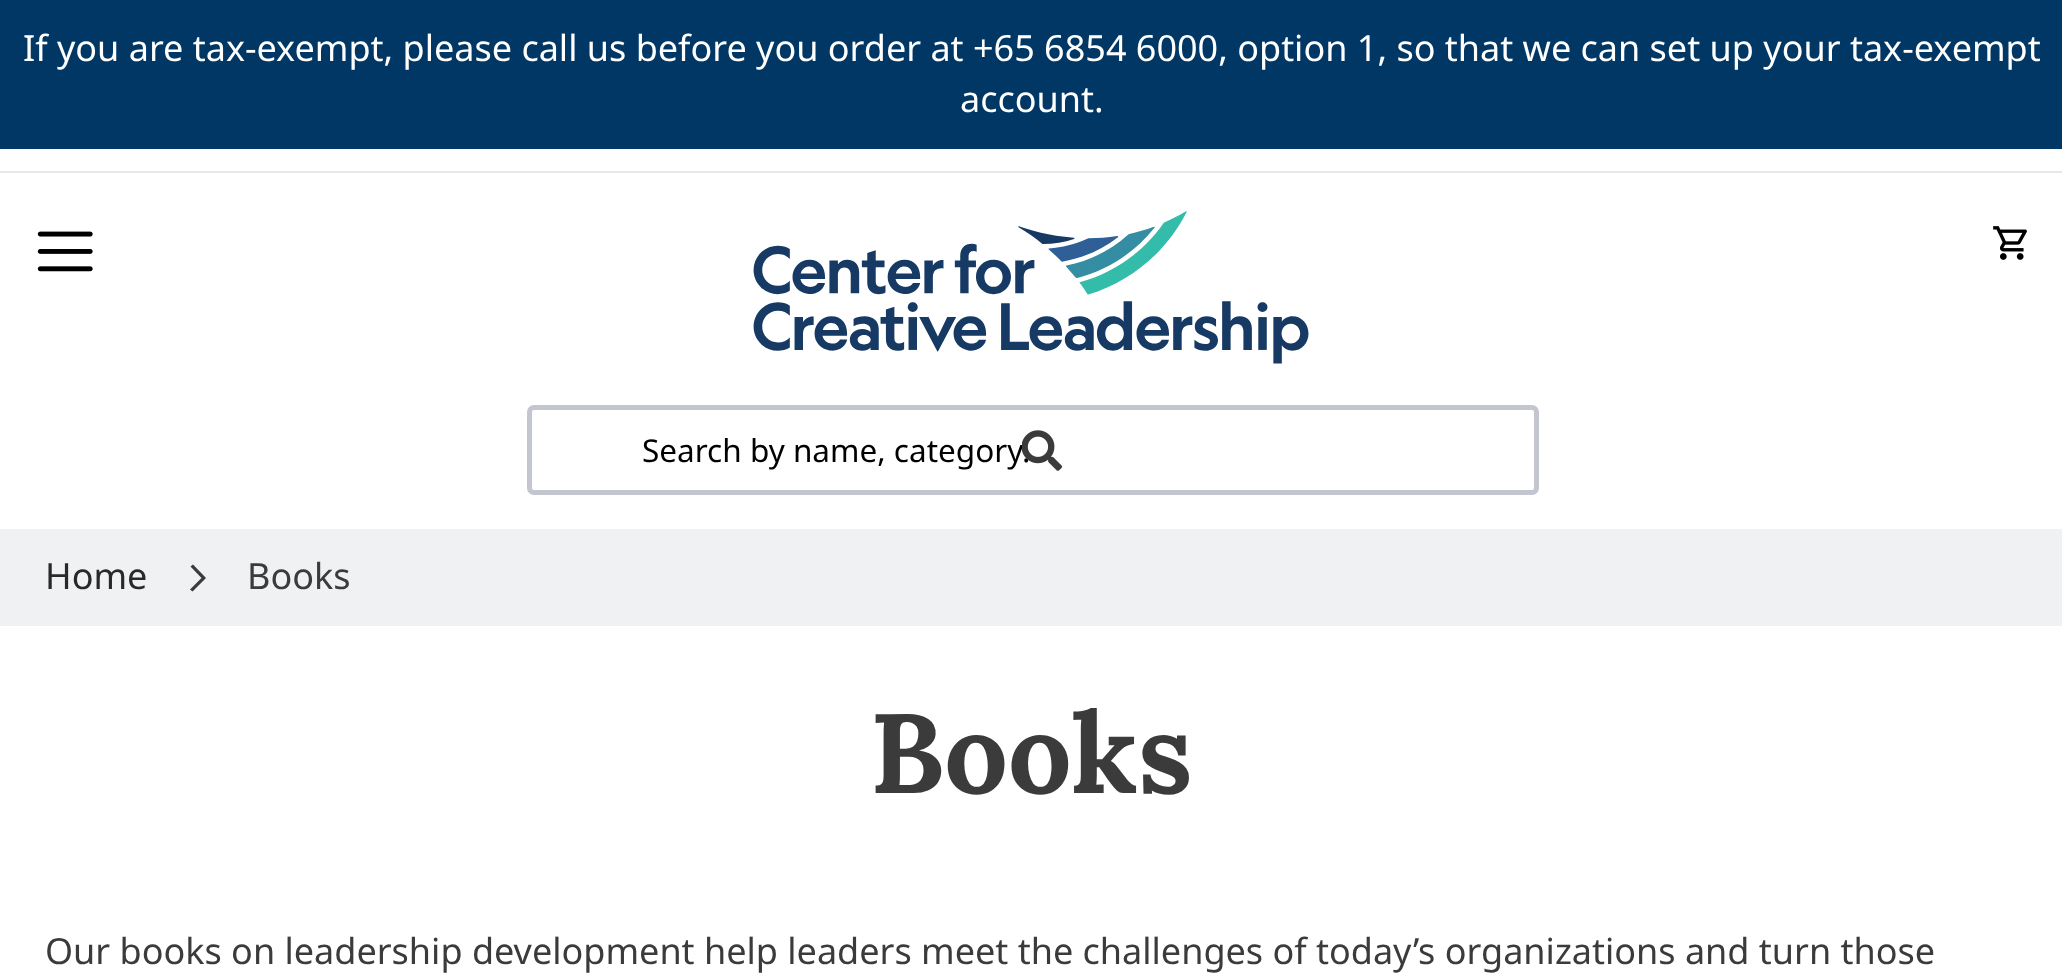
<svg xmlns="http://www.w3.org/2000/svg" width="2062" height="973">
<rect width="100%" height="100%" fill="#fff"/>
<rect width="2062" height="149" fill="#003764"/>
<text x="23" y="61" style="font-family:Noto Sans;font-size:36px;fill:#fff">If you are tax-exempt, please call us before you order at +65 6854 6000, option 1, so that we can set up your tax-exempt</text>
<text x="960" y="112" style="font-family:Noto Sans;font-size:36px;fill:#fff">account.</text>
<rect y="171" width="2062" height="2" fill="#e8e8e8"/>
<image x="1993" y="226" width="34" height="34" href="media/1.png"/>
<image x="37" y="231" width="56" height="41" href="media/2.png"/>
<image x="753" y="211" width="556" height="153" href="media/3.png"/>
<rect x="529.5" y="407.5" width="1007" height="85" rx="4.5" fill="none" stroke="#c3c6cf" stroke-width="5"/>
<text x="642" y="462" style="font-family:Noto Sans;font-size:31.5px;fill:#000">Search by name, category.</text>
<image x="1022" y="430" width="40" height="41" href="media/4.png"/>
<rect y="529" width="2062" height="97" fill="#f0f1f3"/>
<text x="45" y="589" style="font-family:Noto Sans;font-size:36px;fill:#292929">Home</text>
<path d="M206 578l-13-13.5l-2.5 2l11 11.5l-11.5 11.5l2.5 2z" fill="#3b3b3b"/>
<text x="247" y="589" style="font-family:Noto Sans;font-size:36px;fill:#3b3b3b">Books</text>
<text x="870" y="793" style="font-family:Lora;font-size:112.5px;font-weight:bold;fill:#3b3b3b">Books</text>
<text x="45" y="964" style="font-family:Noto Sans;font-size:36px;fill:#3b3b3b">Our books on leadership development help leaders meet the challenges of today’s organizations and turn those</text>
</svg>
